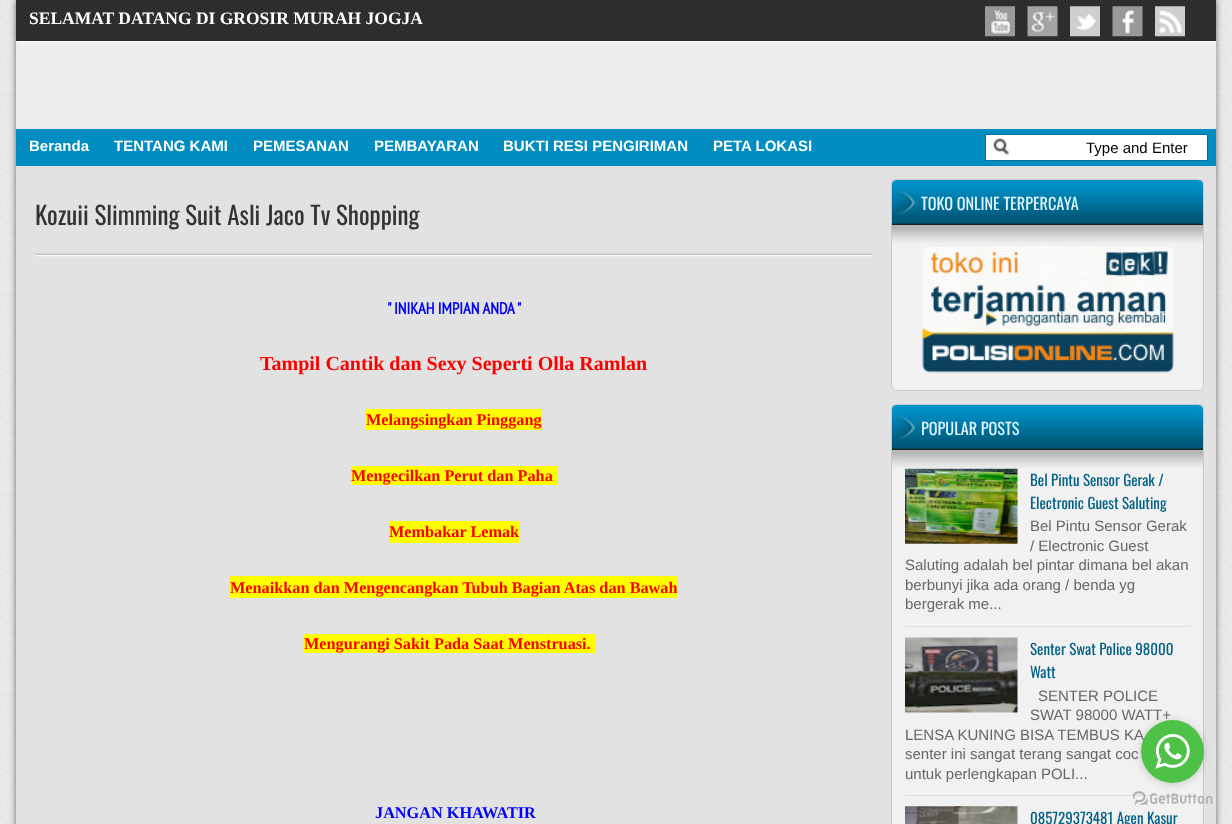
<svg xmlns="http://www.w3.org/2000/svg" width="1232" height="824">
<rect width="100%" height="100%" fill="#fff"/>
<image x="0" y="0" width="1232" height="824" href="media/1.png"/>
<rect x="16" width="1200" height="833" fill="#666" filter="blur(3px)"/>
<rect x="16" y="41" width="1200" height="783" fill="#e2e2e2"/>
<rect x="16" width="1200" height="41" fill="#222"/>
<image x="16" y="0" width="1200" height="41" href="media/2.png"/>
<text x="29" y="24" style="font-family:Liberation Serif;font-size:17.5px;font-weight:bold;fill:#fff">SELAMAT DATANG DI GROSIR MURAH JOGJA</text>
<image x="985" y="6" width="30" height="31" href="media/3.png"/>
<image x="1027" y="6" width="31" height="31" href="media/4.png"/>
<image x="1070" y="6" width="30" height="31" href="media/5.png"/>
<image x="1112" y="6" width="31" height="31" href="media/6.png"/>
<image x="1155" y="6" width="30" height="31" href="media/7.png"/>
<image x="16" y="41" width="1201" height="88" href="media/8.png"/>
<rect x="16" y="129" width="1200" height="37" fill="#018dc1"/>
<text x="29" y="151" style="font-family:Liberation Sans;font-size:15px;font-weight:bold;fill:#fff">Beranda</text>
<text x="114" y="151" style="font-family:Liberation Sans;font-size:15px;font-weight:bold;fill:#fff">TENTANG KAMI</text>
<text x="253" y="151" style="font-family:Liberation Sans;font-size:15px;font-weight:bold;fill:#fff">PEMESANAN</text>
<text x="374" y="151" style="font-family:Liberation Sans;font-size:15px;font-weight:bold;fill:#fff">PEMBAYARAN</text>
<text x="503" y="151" style="font-family:Liberation Sans;font-size:15px;font-weight:bold;fill:#fff">BUKTI RESI PENGIRIMAN</text>
<text x="713" y="151" style="font-family:Liberation Sans;font-size:15px;font-weight:bold;fill:#fff">PETA LOKASI</text>
<rect x="986" y="135" width="221" height="25" fill="#fff"/>
<image x="993" y="138" width="16" height="18" href="media/9.png"/>
<rect x="985.5" y="134.5" width="222" height="26" fill="none" stroke="#006f98"/>
<text x="1086" y="153" style="font-family:Liberation Sans;font-size:15px;fill:#000">Type and Enter</text>
<text x="35" y="225" style="font-family:Oswald;font-size:25px;fill:#333">Kozuii Slimming Suit Asli Jaco Tv Shopping</text>
<image x="35" y="253" width="838" height="4" href="media/10.png"/>
<text x="387" y="314" style="font-family:PT Sans Narrow;font-size:16.25px;font-weight:bold;fill:#00f">" INIKAH IMPIAN ANDA "</text>
<text x="260" y="370" style="font-family:Liberation Serif;font-size:20px;font-weight:bold;fill:#f00">Tampil Cantik dan Sexy Seperti Olla Ramlan</text>
<rect x="366" y="409" width="175" height="21" fill="#ff0"/>
<text x="366" y="425" style="font-family:Liberation Serif;font-size:16.25px;font-weight:bold;fill:#f00">Melangsingkan Pinggang</text>
<rect x="351" y="466" width="206" height="19" fill="#ff0"/>
<text x="351" y="481" style="font-family:Liberation Serif;font-size:16.25px;font-weight:bold;fill:#f00">Mengecilkan Perut dan Paha</text>
<rect x="389" y="521" width="130" height="22" fill="#ff0"/>
<text x="389" y="537" style="font-family:Liberation Serif;font-size:16.25px;font-weight:bold;fill:#f00">Membakar Lemak</text>
<rect x="230" y="576" width="448" height="22" fill="#ff0"/>
<text x="230" y="593" style="font-family:Liberation Serif;font-size:16.25px;font-weight:bold;fill:#f00">Menaikkan dan Mengencangkan Tubuh Bagian Atas dan Bawah</text>
<rect x="304" y="634" width="291" height="19" fill="#ff0"/>
<text x="304" y="649" style="font-family:Liberation Serif;font-size:16.25px;font-weight:bold;fill:#f00">Mengurangi Sakit Pada Saat Menstruasi.</text>
<text x="375" y="818" style="font-family:Liberation Serif;font-size:16.25px;font-weight:bold;fill:#00f">JANGAN KHAWATIR</text>
<rect x="891" y="179" width="313" height="212" rx="6" fill="#f1f1f1"/>
<image x="891" y="180" width="313" height="63" href="media/11.png"/>
<rect x="891.5" y="179.5" width="312" height="211" rx="5.5" fill="none" stroke="#c9c9c9"/>
<image x="896" y="190" width="19" height="25" href="media/12.png"/>
<text x="921" y="210" style="font-family:Oswald;font-size:16.25px;fill:#dff5fd">TOKO ONLINE TERPERCAYA</text>
<image x="922" y="246" width="252" height="127" href="media/13.png"/>
<rect x="891" y="404" width="313" height="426" rx="6" fill="#f1f1f1"/>
<image x="891" y="405" width="313" height="63" href="media/14.png"/>
<rect x="891.5" y="404.5" width="312" height="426" rx="5.5" fill="none" stroke="#c9c9c9"/>
<image x="896" y="415" width="19" height="25" href="media/15.png"/>
<text x="921" y="435" style="font-family:Oswald;font-size:16.25px;fill:#dff5fd">POPULAR POSTS</text>
<rect x="905" y="626" width="285" height="1" fill="#ddd"/>
<image x="905" y="468" width="113" height="76" href="media/16.png"/>
<text x="1030" y="486" style="font-family:Oswald;font-size:15px;fill:#016083">Bel Pintu Sensor Gerak /</text>
<text x="1030" y="509" style="font-family:Oswald;font-size:15px;fill:#016083">Electronic Guest Saluting</text>
<text x="1030" y="531" style="font-family:Liberation Sans;font-size:15px;fill:#666">Bel Pintu Sensor Gerak</text>
<text x="1030" y="551" style="font-family:Liberation Sans;font-size:15px;fill:#666">/ Electronic Guest</text>
<text x="905" y="570" style="font-family:Liberation Sans;font-size:15px;fill:#666">Saluting adalah bel pintar dimana bel akan</text>
<text x="905" y="590" style="font-family:Liberation Sans;font-size:15px;fill:#666">berbunyi jika ada orang / benda yg</text>
<text x="905" y="609" style="font-family:Liberation Sans;font-size:15px;fill:#666">bergerak me...</text>
<rect x="905" y="795" width="285" height="1" fill="#ddd"/>
<image x="905" y="637" width="113" height="76" href="media/17.png"/>
<text x="1030" y="655" style="font-family:Oswald;font-size:15px;fill:#016083">Senter Swat Police 98000</text>
<text x="1030" y="678" style="font-family:Oswald;font-size:15px;fill:#016083">Watt</text>
<text x="1038" y="701" style="font-family:Liberation Sans;font-size:15px;fill:#666">SENTER POLICE</text>
<text x="1030" y="720" style="font-family:Liberation Sans;font-size:15px;fill:#666">SWAT 98000 WATT+</text>
<text x="905" y="740" style="font-family:Liberation Sans;font-size:15px;fill:#666">LENSA KUNING BISA TEMBUS KA</text>
<text x="905" y="759" style="font-family:Liberation Sans;font-size:15px;fill:#666">senter ini sangat terang sangat coc</text>
<text x="905" y="779" style="font-family:Liberation Sans;font-size:15px;fill:#666">untuk perlengkapan POLI...</text>
<image x="905" y="806" width="113" height="18" href="media/18.png"/>
<text x="1030" y="824" style="font-family:Oswald;font-size:15px;fill:#016083">085729373481 Agen Kasur</text>
<image x="1133" y="791" width="80" height="14" href="media/20.png"/>
<rect x="1141" y="721" width="63" height="63" rx="31.5" fill="#88888866" filter="blur(4.5px)"/>
<circle cx="1172.5" cy="751.5" r="31.5" fill="#4dc247"/>
<image x="1155" y="734" width="35" height="35" href="media/19.png"/>
</svg>
